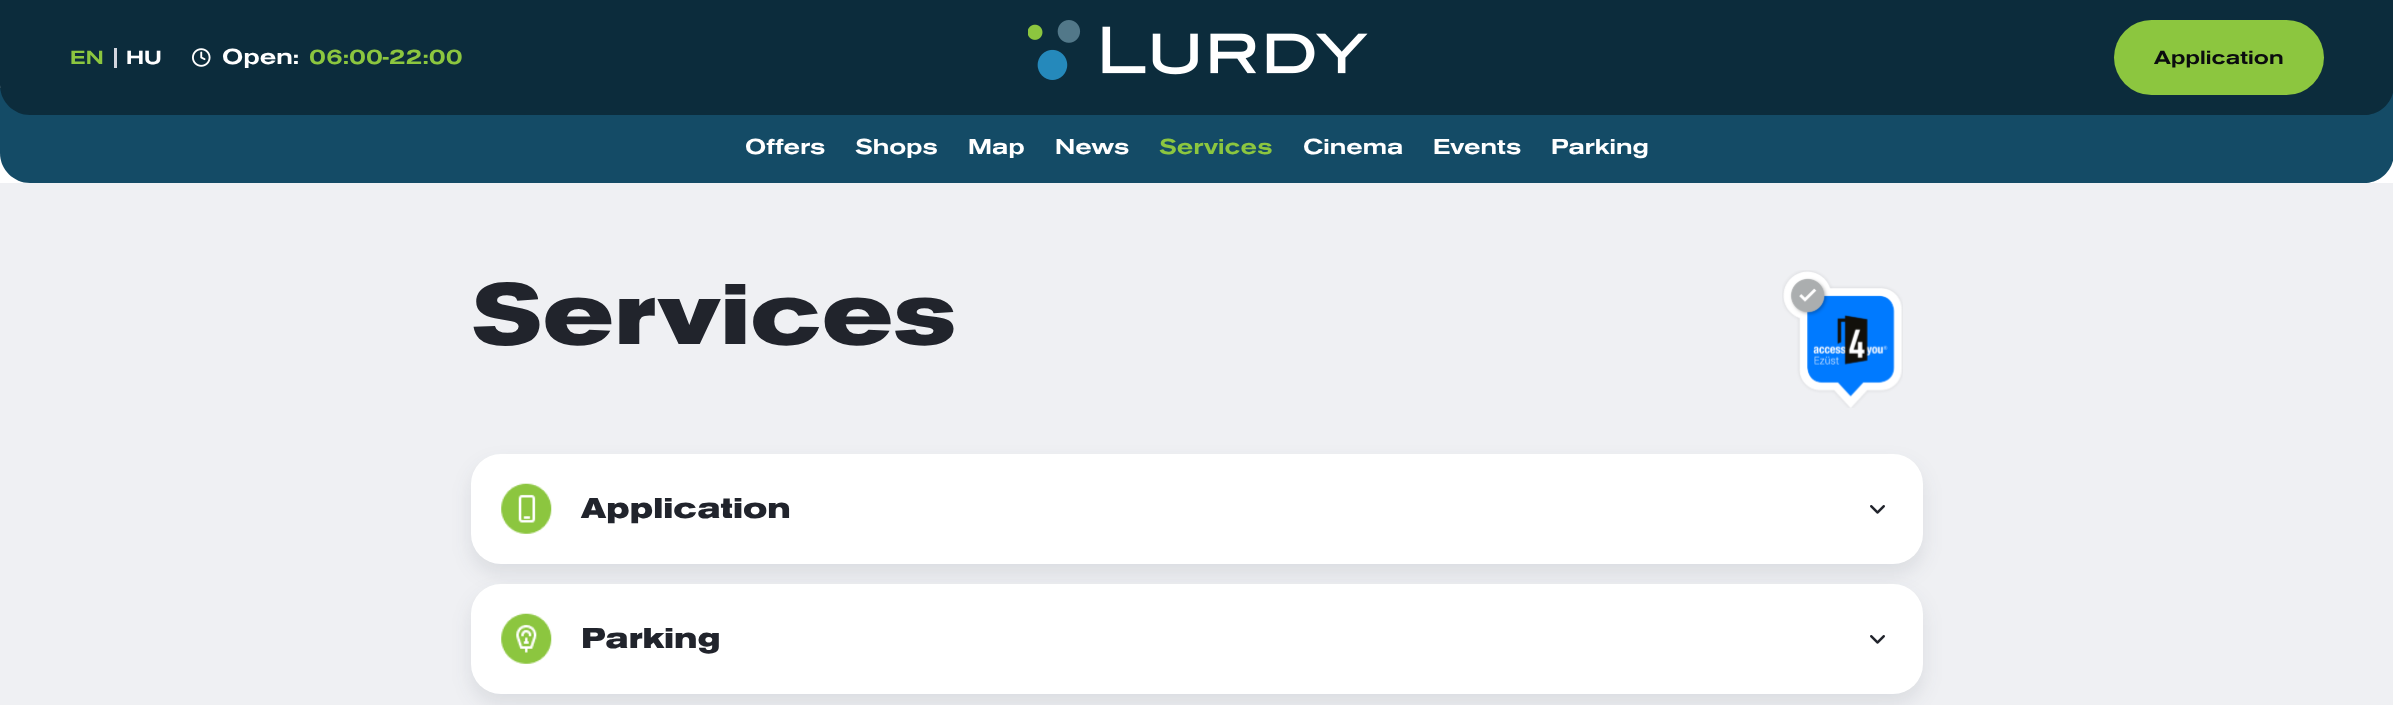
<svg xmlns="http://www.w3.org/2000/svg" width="2393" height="705">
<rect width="100%" height="100%" fill="#fff"/>
<path d="M0 88h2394v65c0 16.5-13.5 30-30 30h-2334c-16.5 0-30-13.5-30-30z" fill="#144b66"/>
<path d="M0 0h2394v85c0 16.5-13.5 30-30 30h-2334c-16.5 0-30-13.5-30-30z" fill="#0c2c3c"/>
<text x="70" y="64" style="font-family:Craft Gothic;font-size:20px;font-weight:bold;fill:#8cc63f">EN</text>
<rect x="114" y="48" width="3" height="20" fill="#d3d6de"/>
<text x="126" y="64" style="font-family:Craft Gothic;font-size:20px;font-weight:bold;fill:#fff">HU</text>
<image x="192" y="48" width="19" height="19" href="media/1.png"/>
<text x="222" y="64" style="font-family:Craft Gothic;font-size:22.5px;font-weight:bold;fill:#fff">Open:</text>
<text x="309" y="64" style="font-family:Craft Gothic;font-size:22.5px;font-weight:bold;fill:#8cc63f">06:00-22:00</text>
<image x="1028" y="20" width="340" height="60" href="media/2.png"/>
<rect x="2114" y="20" width="210" height="75" rx="37.5" fill="#8cc63f"/>
<text x="2154" y="64" style="font-family:Craft Gothic;font-size:20px;font-weight:bold;fill:#0b0c0f">Application</text>
<text x="745" y="154" style="font-family:Craft Gothic;font-size:22.5px;font-weight:bold;fill:#fff">Offers</text>
<text x="855" y="154" style="font-family:Craft Gothic;font-size:22.5px;font-weight:bold;fill:#fff">Shops</text>
<text x="968" y="154" style="font-family:Craft Gothic;font-size:22.5px;font-weight:bold;fill:#fff">Map</text>
<text x="1055" y="154" style="font-family:Craft Gothic;font-size:22.5px;font-weight:bold;fill:#fff">News</text>
<text x="1159" y="154" style="font-family:Craft Gothic;font-size:22.5px;font-weight:bold;fill:#8cc63f">Services</text>
<text x="1303" y="154" style="font-family:Craft Gothic;font-size:22.5px;font-weight:bold;fill:#fff">Cinema</text>
<text x="1433" y="154" style="font-family:Craft Gothic;font-size:22.5px;font-weight:bold;fill:#fff">Events</text>
<text x="1551" y="154" style="font-family:Craft Gothic;font-size:22.5px;font-weight:bold;fill:#fff">Parking</text>
<rect y="183" width="2393" height="522" fill="#eff0f3"/>
<text x="471" y="344" style="font-family:Craft Gothic;font-size:90px;font-weight:900;fill:#21242c">Services</text>
<image x="1782" y="270" width="121" height="138" href="media/3.png"/>
<rect x="471" y="464" width="1452" height="110" rx="30" fill="#2734401a" filter="blur(10px)"/>
<rect x="471" y="454" width="1452" height="110" rx="30" fill="#fff"/>
<image x="501" y="483" width="51" height="51" href="media/4.png"/>
<text x="581" y="518" style="font-family:Craft Gothic;font-size:30px;font-weight:900;fill:#21242c">Application</text>
<image x="1870" y="505" width="15" height="9" href="media/5.png"/>
<rect x="471" y="594" width="1452" height="110" rx="30" fill="#2734401a" filter="blur(10px)"/>
<rect x="471" y="584" width="1452" height="110" rx="30" fill="#fff"/>
<image x="501" y="613" width="51" height="51" href="media/6.png"/>
<text x="581" y="648" style="font-family:Craft Gothic;font-size:30px;font-weight:900;fill:#21242c">Parking</text>
<image x="1870" y="635" width="15" height="9" href="media/5.png"/>
</svg>
